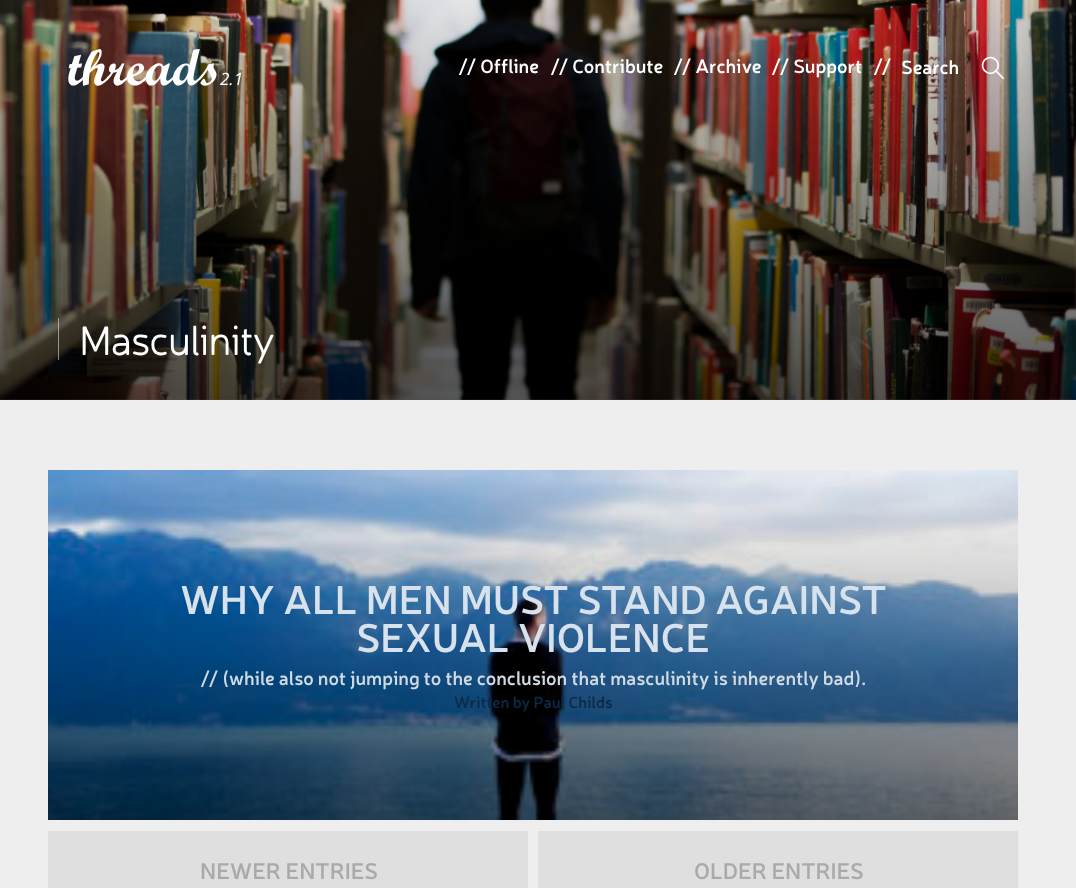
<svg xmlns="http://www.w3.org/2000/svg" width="1076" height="888">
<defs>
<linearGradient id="g1" gradientUnits="userSpaceOnUse" x1="538" y1="0" x2="538" y2="400"><stop offset="0" stop-color="#000" stop-opacity="0.1"/><stop offset="1" stop-color="#000" stop-opacity="0.65"/></linearGradient>
</defs>
<rect width="100%" height="100%" fill="#fff"/>
<image x="0" y="0" width="1076" height="400" href="media/1.png"/>
<rect width="1076" height="400" fill="url(#g1)"/>
<text x="68" y="85" style="font-family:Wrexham;font-size:52px;fill:#fff">threads</text>
<text x="220" y="85" style="font-family:Open Sans;font-size:17px;font-style:italic;fill:#fff">2.1</text>
<text x="458" y="73" style="font-family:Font;font-size:19.2px;font-weight:600;fill:#fff">// Offline</text>
<text x="550" y="73" style="font-family:Font;font-size:19.2px;font-weight:600;fill:#fff">// Contribute</text>
<text x="673" y="73" style="font-family:Font;font-size:19.2px;font-weight:600;fill:#fff">// Archive</text>
<text x="771" y="73" style="font-family:Font;font-size:19.2px;font-weight:600;fill:#fff">// Support</text>
<text x="873" y="73" style="font-family:Font;font-size:19.2px;font-weight:600;fill:#fff">//</text>
<text x="901" y="74" style="font-family:Font;font-size:19.2px;font-weight:600;fill:#fff">Search</text>
<text x="981" y="81" style="font-family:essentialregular;font-size:25px;fill:#fff">W</text>
<rect x="58" y="318" width="1" height="42" fill="#ffffff80"/>
<text x="79" y="355" style="font-family:Font;font-size:40px;font-weight:bold;fill:#fff">Masculinity</text>
<rect y="400" width="1076" height="488" fill="#eee"/>
<image x="48" y="470" width="970" height="350" href="media/2.png"/>
<text x="180" y="614" style="font-family:Font;font-size:40px;font-weight:600;fill:#d8e2ec">WHY ALL MEN MUST STAND AGAINST</text>
<text x="356" y="652" style="font-family:Font;font-size:40px;font-weight:600;fill:#d8e2ec">SEXUAL VIOLENCE</text>
<text x="200" y="685" style="font-family:Font;font-size:19.2px;font-weight:600;fill:#d0dae3">// (while also not jumping to the conclusion that masculinity is inherently bad).</text>
<text x="454" y="708" style="font-family:Font;font-size:16px;font-weight:600;fill:#0d2a45">Written by Paul Childs</text>
<rect x="48" y="831" width="480" height="57" fill="#dfdfdf"/>
<text x="200" y="879" style="font-family:Font;font-size:22.5px;font-weight:600;fill:#aaa">NEWER ENTRIES</text>
<rect x="538" y="831" width="480" height="57" fill="#dfdfdf"/>
<text x="694" y="879" style="font-family:Font;font-size:22.5px;font-weight:600;fill:#aaa">OLDER ENTRIES</text>
</svg>
